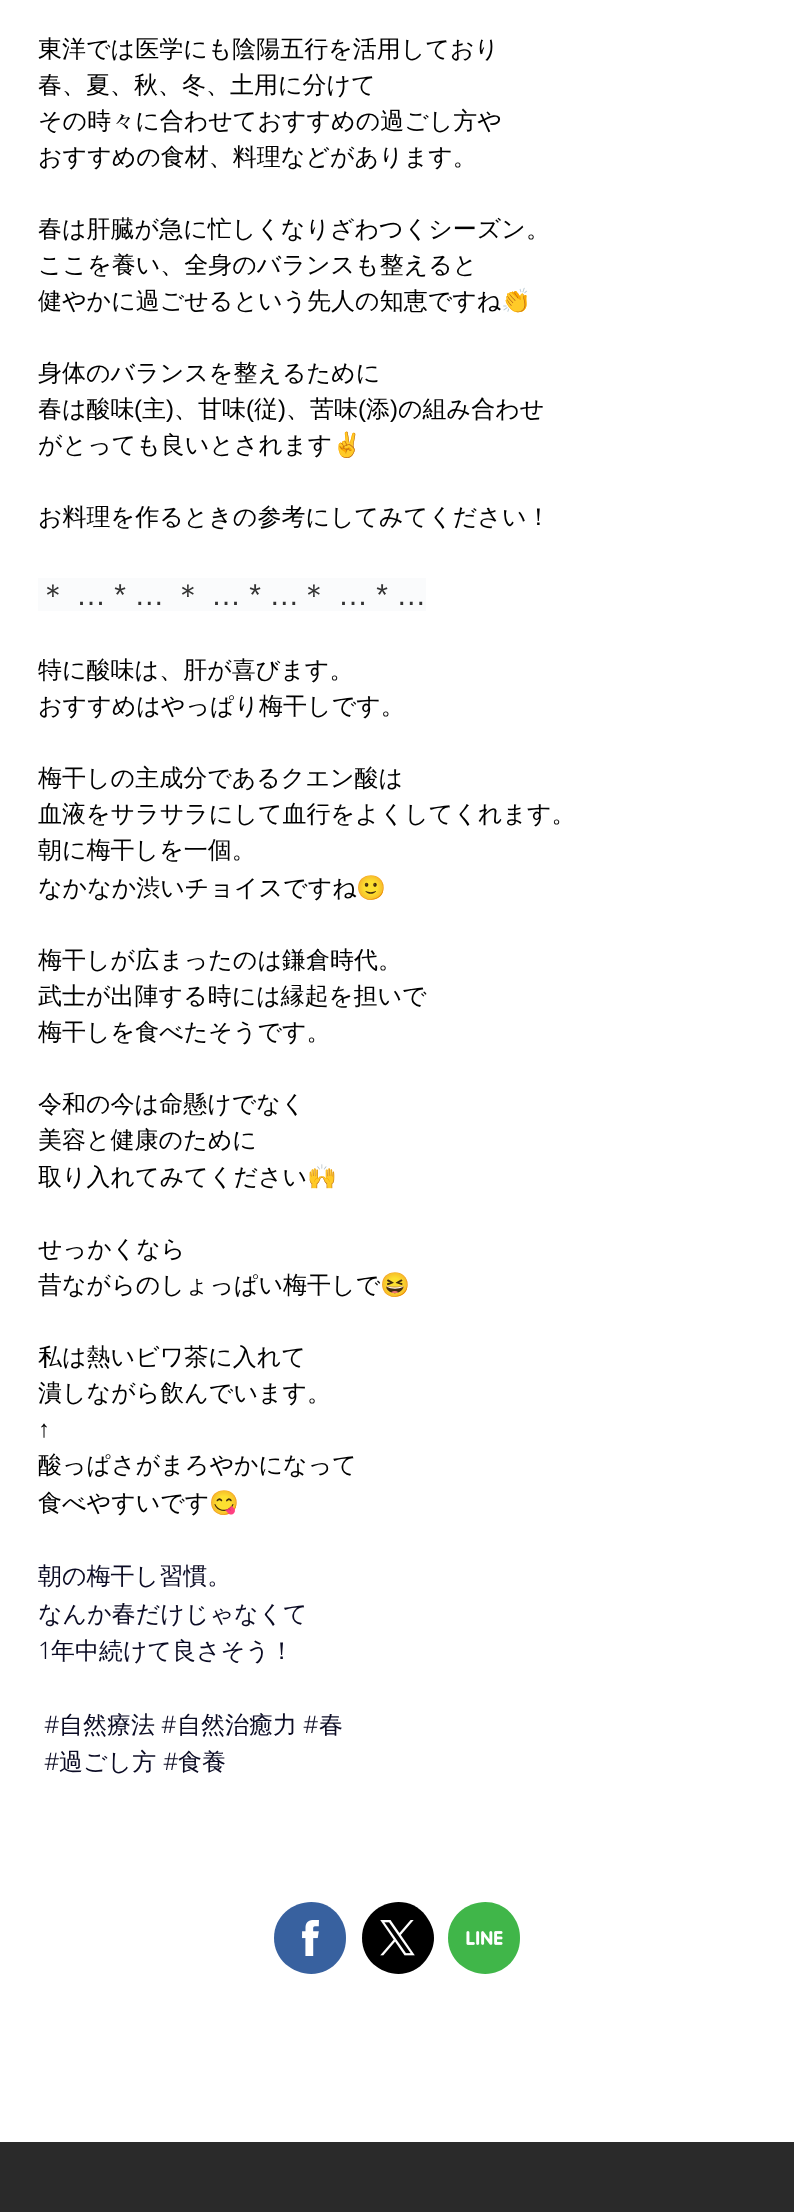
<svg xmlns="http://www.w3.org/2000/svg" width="794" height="2212">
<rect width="100%" height="100%" fill="#fff"/>
<text x="38" y="57" style="font-family:WenQuanYi Zen Hei;font-size:24px;font-weight:500;fill:#000">東洋では医学にも陰陽五行を活用しており</text>
<text x="38" y="93" style="font-family:WenQuanYi Zen Hei;font-size:24px;font-weight:500;fill:#000">春、夏、秋、冬、土用に分けて</text>
<text x="38" y="129" style="font-family:WenQuanYi Zen Hei;font-size:24px;font-weight:500;fill:#000">その時々に合わせておすすめの過ごし方や</text>
<text x="38" y="165" style="font-family:WenQuanYi Zen Hei;font-size:24px;font-weight:500;fill:#000">おすすめの食材、料理などがあります。</text>
<text x="38" y="237" style="font-family:WenQuanYi Zen Hei;font-size:24px;font-weight:500;fill:#000">春は肝臓が急に忙しくなりざわつくシーズン。</text>
<text x="38" y="273" style="font-family:WenQuanYi Zen Hei;font-size:24px;font-weight:500;fill:#000">ここを養い、全身のバランスも整えると</text>
<text x="38" y="309" style="font-family:WenQuanYi Zen Hei;font-size:24px;font-weight:500;fill:#000">健やかに過ごせるという先人の知恵ですね</text>
<text x="501" y="309" style="font-family:Noto Color Emoji;font-size:24px;fill:#000">👏</text>
<text x="38" y="381" style="font-family:WenQuanYi Zen Hei;font-size:24px;font-weight:500;fill:#000">身体のバランスを整えるために</text>
<text x="38" y="417" style="font-family:WenQuanYi Zen Hei;font-size:24px;font-weight:500;fill:#000">春は酸味</text>
<text x="134" y="417" style="font-family:Liberation Sans;font-size:24px;fill:#000">(</text>
<text x="142" y="417" style="font-family:WenQuanYi Zen Hei;font-size:24px;font-weight:500;fill:#000">主</text>
<text x="166" y="417" style="font-family:Liberation Sans;font-size:24px;fill:#000">)</text>
<text x="174" y="417" style="font-family:WenQuanYi Zen Hei;font-size:24px;font-weight:500;fill:#000">、甘味</text>
<text x="246" y="417" style="font-family:Liberation Sans;font-size:24px;fill:#000">(</text>
<text x="254" y="417" style="font-family:WenQuanYi Zen Hei;font-size:24px;font-weight:500;fill:#000">従</text>
<text x="278" y="417" style="font-family:Liberation Sans;font-size:24px;fill:#000">)</text>
<text x="286" y="417" style="font-family:WenQuanYi Zen Hei;font-size:24px;font-weight:500;fill:#000">、苦味</text>
<text x="358" y="417" style="font-family:Liberation Sans;font-size:24px;fill:#000">(</text>
<text x="366" y="417" style="font-family:WenQuanYi Zen Hei;font-size:24px;font-weight:500;fill:#000">添</text>
<text x="390" y="417" style="font-family:Liberation Sans;font-size:24px;fill:#000">)</text>
<text x="398" y="417" style="font-family:WenQuanYi Zen Hei;font-size:24px;font-weight:500;fill:#000">の組み合わせ</text>
<text x="38" y="453" style="font-family:WenQuanYi Zen Hei;font-size:24px;font-weight:500;fill:#000">がとっても良いとされます</text>
<text x="332" y="453" style="font-family:Noto Color Emoji;font-size:24px;fill:#000">✌️</text>
<text x="38" y="525" style="font-family:WenQuanYi Zen Hei;font-size:24px;font-weight:500;fill:#000">お料理を作るときの参考にしてみてください！</text>
<rect x="38" y="578" width="388" height="33" fill="#fafbfc"/>
<text x="38" y="605" style="font-family:WenQuanYi Zen Hei;font-size:30px;font-weight:500;fill:#333">＊</text>
<text x="76" y="605" style="font-family:Liberation Sans;font-size:30px;fill:#333">… * …</text>
<text x="173" y="605" style="font-family:WenQuanYi Zen Hei;font-size:30px;font-weight:500;fill:#333">＊</text>
<text x="211" y="605" style="font-family:Liberation Sans;font-size:30px;fill:#333">… * …</text>
<text x="299" y="605" style="font-family:WenQuanYi Zen Hei;font-size:30px;font-weight:500;fill:#333">＊</text>
<text x="338" y="605" style="font-family:Liberation Sans;font-size:30px;fill:#333">… * …</text>
<text x="38" y="678" style="font-family:WenQuanYi Zen Hei;font-size:24px;font-weight:500;fill:#000">特に酸味は、肝が喜びます。</text>
<text x="38" y="714" style="font-family:WenQuanYi Zen Hei;font-size:24px;font-weight:500;fill:#000">おすすめはやっぱり梅干しです。</text>
<text x="38" y="786" style="font-family:WenQuanYi Zen Hei;font-size:24px;font-weight:500;fill:#000">梅干しの主成分であるクエン酸は</text>
<text x="38" y="822" style="font-family:WenQuanYi Zen Hei;font-size:24px;font-weight:500;fill:#000">血液をサラサラにして血行をよくしてくれます。</text>
<text x="38" y="858" style="font-family:WenQuanYi Zen Hei;font-size:24px;font-weight:500;fill:#000">朝に梅干しを一個。</text>
<text x="38" y="896" style="font-family:WenQuanYi Zen Hei;font-size:24px;font-weight:500;fill:#000">なかなか渋いチョイスですね</text>
<text x="356" y="896" style="font-family:Noto Color Emoji;font-size:24px;fill:#0a0a23">🙂</text>
<text x="38" y="968" style="font-family:WenQuanYi Zen Hei;font-size:24px;font-weight:500;fill:#000">梅干しが広まったのは鎌倉時代。</text>
<text x="38" y="1004" style="font-family:WenQuanYi Zen Hei;font-size:24px;font-weight:500;fill:#000">武士が出陣する時には縁起を担いで</text>
<text x="38" y="1040" style="font-family:WenQuanYi Zen Hei;font-size:24px;font-weight:500;fill:#000">梅干しを食べたそうです。</text>
<text x="38" y="1112" style="font-family:WenQuanYi Zen Hei;font-size:24px;font-weight:500;fill:#000">令和の今は命懸けでなく</text>
<text x="38" y="1148" style="font-family:WenQuanYi Zen Hei;font-size:24px;font-weight:500;fill:#000">美容と健康のために</text>
<text x="38" y="1185" style="font-family:WenQuanYi Zen Hei;font-size:24px;font-weight:500;fill:#000">取り入れてみてください</text>
<text x="307" y="1185" style="font-family:Noto Color Emoji;font-size:24px;fill:#0a0a23">🙌</text>
<text x="38" y="1257" style="font-family:WenQuanYi Zen Hei;font-size:24px;font-weight:500;fill:#000">せっかくなら</text>
<text x="38" y="1293" style="font-family:WenQuanYi Zen Hei;font-size:24px;font-weight:500;fill:#000">昔ながらのしょっぱい梅干しで</text>
<text x="380" y="1293" style="font-family:Noto Color Emoji;font-size:24px;fill:#000">😆</text>
<text x="38" y="1365" style="font-family:WenQuanYi Zen Hei;font-size:24px;font-weight:500;fill:#000">私は熱いビワ茶に入れて</text>
<text x="38" y="1401" style="font-family:WenQuanYi Zen Hei;font-size:24px;font-weight:500;fill:#000">潰しながら飲んでいます。</text>
<text x="38" y="1437" style="font-family:Liberation Sans;font-size:24px;fill:#000">↑</text>
<text x="38" y="1473" style="font-family:WenQuanYi Zen Hei;font-size:24px;font-weight:500;fill:#000">酸っぱさがまろやかになって</text>
<text x="38" y="1511" style="font-family:WenQuanYi Zen Hei;font-size:24px;font-weight:500;fill:#000">食べやすいです</text>
<text x="209" y="1511" style="font-family:Noto Color Emoji;font-size:24px;fill:#0a0a23">😋</text>
<text x="38" y="1584" style="font-family:WenQuanYi Zen Hei;font-size:24px;font-weight:500;fill:#0a0a23">朝の梅干し習慣。</text>
<text x="38" y="1622" style="font-family:WenQuanYi Zen Hei;font-size:24px;font-weight:500;fill:#0a0a23">なんか春だけじゃなくて</text>
<text x="38" y="1659" style="font-family:Noto Sans;font-size:24px;font-weight:300;fill:#0a0a23">1</text>
<text x="51" y="1659" style="font-family:WenQuanYi Zen Hei;font-size:24px;font-weight:500;fill:#0a0a23">年中続けて良さそう！</text>
<text x="44" y="1733" style="font-family:Noto Sans;font-size:24px;font-weight:300;fill:#0a0a23">#</text>
<text x="59" y="1733" style="font-family:WenQuanYi Zen Hei;font-size:24px;font-weight:500;fill:#0a0a23">自然療法</text>
<text x="161" y="1733" style="font-family:Noto Sans;font-size:24px;font-weight:300;fill:#0a0a23">#</text>
<text x="177" y="1733" style="font-family:WenQuanYi Zen Hei;font-size:24px;font-weight:500;fill:#0a0a23">自然治癒力</text>
<text x="303" y="1733" style="font-family:Noto Sans;font-size:24px;font-weight:300;fill:#0a0a23">#</text>
<text x="319" y="1733" style="font-family:WenQuanYi Zen Hei;font-size:24px;font-weight:500;fill:#0a0a23">春</text>
<text x="44" y="1770" style="font-family:Noto Sans;font-size:24px;font-weight:300;fill:#0a0a23">#</text>
<text x="59" y="1770" style="font-family:WenQuanYi Zen Hei;font-size:24px;font-weight:500;fill:#0a0a23">過ごし方</text>
<text x="163" y="1770" style="font-family:Noto Sans;font-size:24px;font-weight:300;fill:#0a0a23">#</text>
<text x="178" y="1770" style="font-family:WenQuanYi Zen Hei;font-size:24px;font-weight:500;fill:#0a0a23">食養</text>
<path d="M274 1938c0 34 45 49 65 22c5-7 7-14 7-22c0-8-2-15-7-22c-20-27-65-12-65 22z" fill="#38619f"/>
<image x="302" y="1920" width="17" height="36" href="media/1.png"/>
<path d="M362 1938c0 34 44 49 64 22c5-7 8-14 8-22c0-8-3-15-8-22c-20-27-64-12-64 22z" fill="#000"/>
<image x="380" y="1920" width="35" height="36" href="media/2.png"/>
<path d="M448 1938c0 34 45 49 65 22c5-7 7-14 7-22c0-8-2-15-7-22c-20-27-65-12-65 22z" fill="#40b649"/>
<image x="466" y="1931" width="37" height="14" href="media/3.png"/>
<rect y="2142" width="794" height="70" fill="#2a2a2a"/>
</svg>
